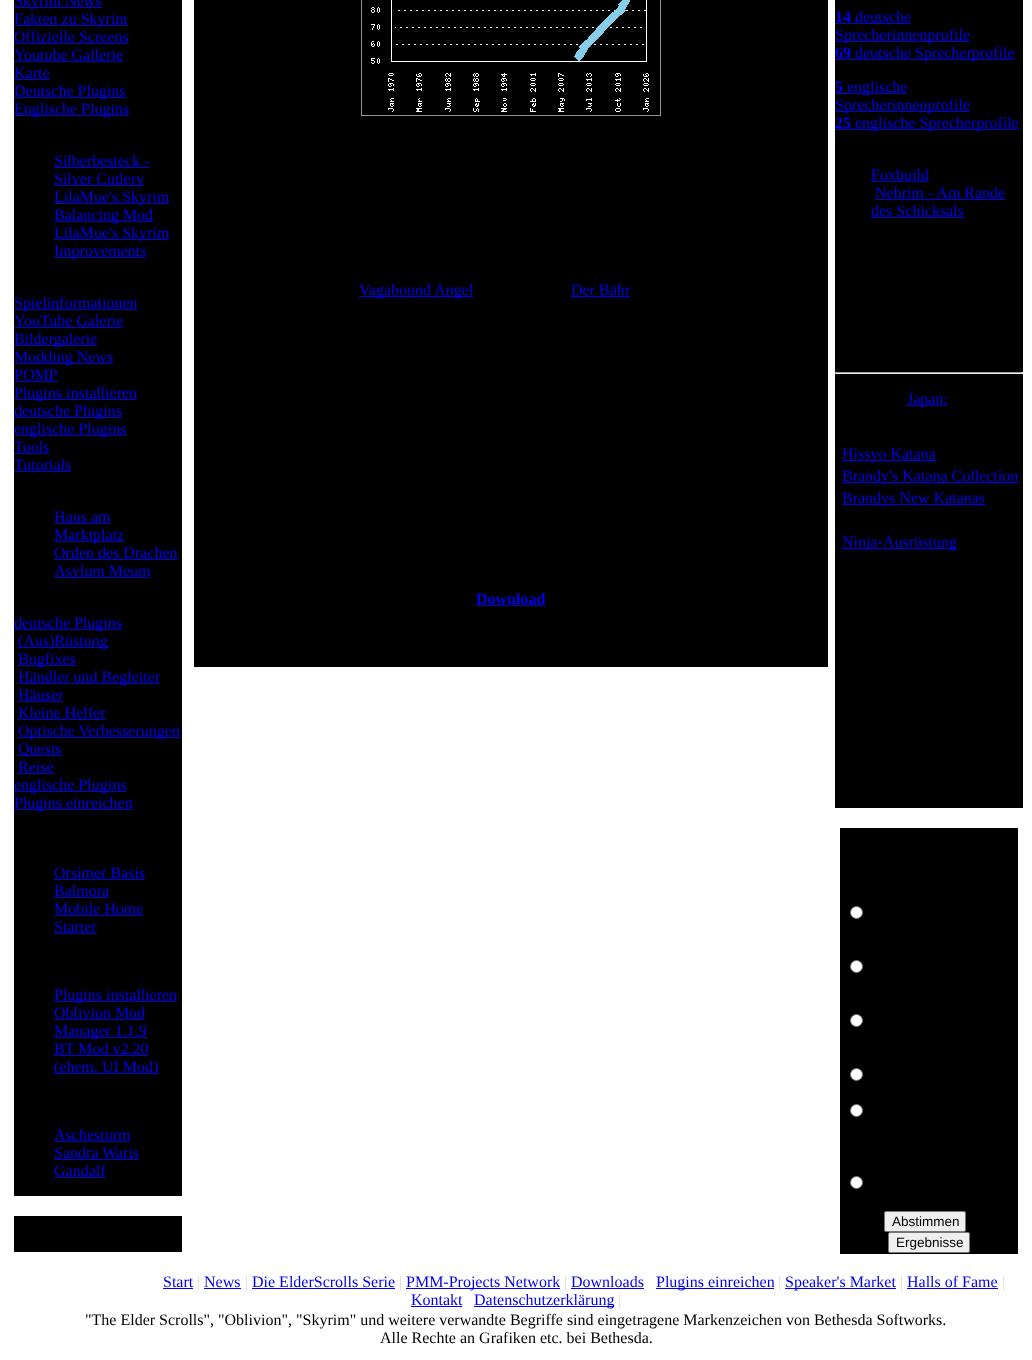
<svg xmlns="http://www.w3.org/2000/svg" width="1032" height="1360">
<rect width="100%" height="100%" fill="#fff"/>
<rect x="14" width="168" height="1196" fill="#000"/>
<rect x="14" y="7" width="88" height="1" fill="#00e"/>
<text x="14" y="6" style="font-family:Liberation Serif;font-size:16px;fill:#00e">Skyrim News</text>
<rect x="14" y="25" width="114" height="1" fill="#00e"/>
<text x="14" y="24" style="font-family:Liberation Serif;font-size:16px;fill:#00e">Fakten zu Skyrim</text>
<text x="14" y="42" style="font-family:Liberation Serif;font-size:16px;fill:#00e">Offizielle Screens</text>
<rect x="14" y="43" width="115" height="1" fill="#00e"/>
<text x="14" y="60" style="font-family:Liberation Serif;font-size:16px;fill:#00e">Youtube Gallerie</text>
<rect x="14" y="61" width="109" height="1" fill="#00e"/>
<text x="14" y="78" style="font-family:Liberation Serif;font-size:16px;fill:#00e">Karte</text>
<rect x="14" y="79" width="36" height="1" fill="#00e"/>
<rect x="14" y="97" width="112" height="1" fill="#00e"/>
<text x="14" y="96" style="font-family:Liberation Serif;font-size:16px;fill:#00e">Deutsche Plugins</text>
<rect x="14" y="115" width="115" height="1" fill="#00e"/>
<text x="14" y="114" style="font-family:Liberation Serif;font-size:16px;fill:#00e">Englische Plugins</text>
<text x="54" y="166" style="font-family:Liberation Serif;font-size:16px;fill:#00e">Silberbesteck -</text>
<rect x="54" y="167" width="96" height="1" fill="#00e"/>
<rect x="54" y="185" width="90" height="1" fill="#00e"/>
<text x="54" y="184" style="font-family:Liberation Serif;font-size:16px;fill:#00e">Silver Cutlery</text>
<rect x="54" y="203" width="115" height="1" fill="#00e"/>
<text x="54" y="202" style="font-family:Liberation Serif;font-size:16px;fill:#00e">LilaMue's Skyrim</text>
<rect x="54" y="221" width="99" height="1" fill="#00e"/>
<text x="54" y="220" style="font-family:Liberation Serif;font-size:16px;fill:#00e">Balancing Mod</text>
<rect x="54" y="239" width="115" height="1" fill="#00e"/>
<text x="54" y="238" style="font-family:Liberation Serif;font-size:16px;fill:#00e">LilaMue's Skyrim</text>
<rect x="54" y="257" width="92" height="1" fill="#00e"/>
<text x="54" y="256" style="font-family:Liberation Serif;font-size:16px;fill:#00e">Improvements</text>
<rect x="14" y="309" width="124" height="1" fill="#00e"/>
<text x="14" y="308" style="font-family:Liberation Serif;font-size:16px;fill:#00e">Spielinformationen</text>
<text x="14" y="326" style="font-family:Liberation Serif;font-size:16px;fill:#00e">YouTube Galerie</text>
<rect x="14" y="327" width="109" height="1" fill="#00e"/>
<rect x="14" y="345" width="83" height="1" fill="#00e"/>
<text x="14" y="344" style="font-family:Liberation Serif;font-size:16px;fill:#00e">Bildergalerie</text>
<rect x="14" y="363" width="99" height="1" fill="#00e"/>
<text x="14" y="362" style="font-family:Liberation Serif;font-size:16px;fill:#00e">Modding News</text>
<text x="14" y="380" style="font-family:Liberation Serif;font-size:16px;fill:#00e">POMP</text>
<rect x="14" y="381" width="44" height="1" fill="#00e"/>
<rect x="14" y="399" width="123" height="1" fill="#00e"/>
<text x="14" y="398" style="font-family:Liberation Serif;font-size:16px;fill:#00e">Plugins installieren</text>
<rect x="14" y="417" width="108" height="1" fill="#00e"/>
<text x="14" y="416" style="font-family:Liberation Serif;font-size:16px;fill:#00e">deutsche Plugins</text>
<rect x="14" y="435" width="112" height="1" fill="#00e"/>
<text x="14" y="434" style="font-family:Liberation Serif;font-size:16px;fill:#00e">englische Plugins</text>
<text x="14" y="452" style="font-family:Liberation Serif;font-size:16px;fill:#00e">Tools</text>
<rect x="14" y="453" width="35" height="1" fill="#00e"/>
<text x="14" y="470" style="font-family:Liberation Serif;font-size:16px;fill:#00e">Tutorials</text>
<rect x="14" y="471" width="57" height="1" fill="#00e"/>
<text x="54" y="522" style="font-family:Liberation Serif;font-size:16px;fill:#00e">Haus am</text>
<rect x="54" y="523" width="56" height="1" fill="#00e"/>
<rect x="54" y="541" width="70" height="1" fill="#00e"/>
<text x="54" y="540" style="font-family:Liberation Serif;font-size:16px;fill:#00e">Marktplatz</text>
<text x="54" y="558" style="font-family:Liberation Serif;font-size:16px;fill:#00e">Orden des Drachen</text>
<rect x="54" y="559" width="124" height="1" fill="#00e"/>
<rect x="54" y="577" width="96" height="1" fill="#00e"/>
<text x="54" y="576" style="font-family:Liberation Serif;font-size:16px;fill:#00e">Asylum Meum</text>
<rect x="14" y="629" width="108" height="1" fill="#00e"/>
<text x="14" y="628" style="font-family:Liberation Serif;font-size:16px;fill:#00e">deutsche Plugins</text>
<rect x="18" y="647" width="90" height="1" fill="#00e"/>
<text x="18" y="646" style="font-family:Liberation Serif;font-size:16px;fill:#00e">(Aus)Rüstung</text>
<rect x="18" y="665" width="58" height="1" fill="#00e"/>
<text x="18" y="664" style="font-family:Liberation Serif;font-size:16px;fill:#00e">Bugfixes</text>
<rect x="18" y="683" width="142" height="1" fill="#00e"/>
<text x="18" y="682" style="font-family:Liberation Serif;font-size:16px;fill:#00e">Händler und Begleiter</text>
<text x="18" y="700" style="font-family:Liberation Serif;font-size:16px;fill:#00e">Häuser</text>
<rect x="18" y="701" width="45" height="1" fill="#00e"/>
<text x="18" y="718" style="font-family:Liberation Serif;font-size:16px;fill:#00e">Kleine Helfer</text>
<rect x="18" y="719" width="88" height="1" fill="#00e"/>
<rect x="18" y="737" width="162" height="1" fill="#00e"/>
<text x="18" y="736" style="font-family:Liberation Serif;font-size:16px;fill:#00e">Optische Verbesserungen</text>
<rect x="18" y="755" width="44" height="1" fill="#00e"/>
<text x="18" y="754" style="font-family:Liberation Serif;font-size:16px;fill:#00e">Quests</text>
<text x="18" y="772" style="font-family:Liberation Serif;font-size:16px;fill:#00e">Reise</text>
<rect x="18" y="773" width="36" height="1" fill="#00e"/>
<rect x="14" y="791" width="112" height="1" fill="#00e"/>
<text x="14" y="790" style="font-family:Liberation Serif;font-size:16px;fill:#00e">englische Plugins</text>
<rect x="14" y="809" width="119" height="1" fill="#00e"/>
<text x="14" y="808" style="font-family:Liberation Serif;font-size:16px;fill:#00e">Plugins einreichen</text>
<text x="54" y="878" style="font-family:Liberation Serif;font-size:16px;fill:#00e">Orsimer Basis</text>
<rect x="54" y="879" width="91" height="1" fill="#00e"/>
<text x="54" y="896" style="font-family:Liberation Serif;font-size:16px;fill:#00e">Balmora</text>
<rect x="54" y="897" width="55" height="1" fill="#00e"/>
<text x="54" y="914" style="font-family:Liberation Serif;font-size:16px;fill:#00e">Mobile Home</text>
<rect x="54" y="915" width="89" height="1" fill="#00e"/>
<text x="54" y="932" style="font-family:Liberation Serif;font-size:16px;fill:#00e">Starter</text>
<rect x="54" y="933" width="43" height="1" fill="#00e"/>
<rect x="54" y="1001" width="123" height="1" fill="#00e"/>
<text x="54" y="1000" style="font-family:Liberation Serif;font-size:16px;fill:#00e">Plugins installieren</text>
<text x="54" y="1018" style="font-family:Liberation Serif;font-size:16px;fill:#00e">Oblivion Mod</text>
<rect x="54" y="1019" width="91" height="1" fill="#00e"/>
<rect x="54" y="1037" width="93" height="1" fill="#00e"/>
<text x="54" y="1036" style="font-family:Liberation Serif;font-size:16px;fill:#00e">Manager 1.1.9</text>
<text x="54" y="1054" style="font-family:Liberation Serif;font-size:16px;fill:#00e">BT Mod v2.20</text>
<rect x="54" y="1055" width="94" height="1" fill="#00e"/>
<rect x="54" y="1073" width="104" height="1" fill="#00e"/>
<text x="54" y="1072" style="font-family:Liberation Serif;font-size:16px;fill:#00e">(ehem. UI Mod)</text>
<text x="54" y="1140" style="font-family:Liberation Serif;font-size:16px;fill:#00e">Aschesturm</text>
<rect x="54" y="1141" width="76" height="1" fill="#00e"/>
<text x="54" y="1158" style="font-family:Liberation Serif;font-size:16px;fill:#00e">Sandra Waris</text>
<rect x="54" y="1159" width="85" height="1" fill="#00e"/>
<text x="54" y="1176" style="font-family:Liberation Serif;font-size:16px;fill:#00e">Gandalf</text>
<rect x="54" y="1177" width="52" height="1" fill="#00e"/>
<rect x="14" y="1216" width="168" height="36" fill="#000"/>
<rect x="194" width="634" height="667" fill="#000"/>
<image x="361" y="0" width="300" height="116" href="media/1.png"/>
<rect x="359" y="296" width="114" height="1" fill="#00e"/>
<text x="359" y="295" style="font-family:Liberation Serif;font-size:16px;fill:#00e">Vagabound Angel</text>
<text x="571" y="295" style="font-family:Liberation Serif;font-size:16px;fill:#00e">Der Bähr</text>
<rect x="571" y="296" width="59" height="1" fill="#00e"/>
<text x="476" y="604" style="font-family:Liberation Serif;font-size:16px;font-weight:bold;fill:#00e">Download</text>
<rect x="476" y="605" width="70" height="1" fill="#00e"/>
<rect x="835" width="188" height="808" fill="#000"/>
<text x="835" y="22" style="font-family:Liberation Serif;font-size:16px;font-weight:bold;fill:#00e">14</text>
<rect x="835" y="23" width="76" height="1" fill="#00e"/>
<text x="855" y="22" style="font-family:Liberation Serif;font-size:16px;fill:#00e">deutsche</text>
<rect x="835" y="41" width="135" height="1" fill="#00e"/>
<text x="835" y="40" style="font-family:Liberation Serif;font-size:16px;fill:#00e">Sprecherinnenprofile</text>
<text x="835" y="58" style="font-family:Liberation Serif;font-size:16px;font-weight:bold;fill:#00e">69</text>
<rect x="835" y="59" width="179" height="1" fill="#00e"/>
<text x="855" y="58" style="font-family:Liberation Serif;font-size:16px;fill:#00e">deutsche Sprecherprofile</text>
<text x="835" y="92" style="font-family:Liberation Serif;font-size:16px;font-weight:bold;fill:#00e">5</text>
<rect x="835" y="93" width="72" height="1" fill="#00e"/>
<text x="847" y="92" style="font-family:Liberation Serif;font-size:16px;fill:#00e">englische</text>
<rect x="835" y="111" width="135" height="1" fill="#00e"/>
<text x="835" y="110" style="font-family:Liberation Serif;font-size:16px;fill:#00e">Sprecherinnenprofile</text>
<text x="835" y="128" style="font-family:Liberation Serif;font-size:16px;font-weight:bold;fill:#00e">25</text>
<rect x="835" y="129" width="184" height="1" fill="#00e"/>
<text x="855" y="128" style="font-family:Liberation Serif;font-size:16px;fill:#00e">englische Sprecherprofile</text>
<text x="871" y="180" style="font-family:Liberation Serif;font-size:16px;fill:#00e">Foxbuild</text>
<rect x="871" y="181" width="58" height="1" fill="#00e"/>
<text x="875" y="198" style="font-family:Liberation Serif;font-size:16px;fill:#00e">Nehrim - Am Rande</text>
<rect x="875" y="199" width="130" height="1" fill="#00e"/>
<text x="871" y="216" style="font-family:Liberation Serif;font-size:16px;fill:#00e">des Schicksals</text>
<rect x="871" y="217" width="93" height="1" fill="#00e"/>
<rect x="835" y="372" width="188" height="1" fill="#9f9f9f"/>
<rect x="1022" y="372" width="1" height="2" fill="#eee"/>
<rect x="835" y="373" width="188" height="1" fill="#eee"/>
<rect x="835" y="372" width="1" height="2" fill="#9f9f9f"/>
<rect x="907" y="405" width="40" height="1" fill="#00e"/>
<text x="907" y="404" style="font-family:Liberation Serif;font-size:16px;fill:#00e">Japan:</text>
<rect x="842" y="460" width="94" height="1" fill="#00e"/>
<text x="842" y="459" style="font-family:Liberation Serif;font-size:16px;fill:#00e">Hissyo Katana</text>
<rect x="842" y="482" width="176" height="1" fill="#00e"/>
<text x="842" y="481" style="font-family:Liberation Serif;font-size:16px;fill:#00e">Brandy's Katana Collection</text>
<rect x="842" y="504" width="143" height="1" fill="#00e"/>
<text x="842" y="503" style="font-family:Liberation Serif;font-size:16px;fill:#00e">Brandys New Katanas</text>
<rect x="842" y="548" width="115" height="1" fill="#00e"/>
<text x="842" y="547" style="font-family:Liberation Serif;font-size:16px;fill:#00e">Ninja-Ausrüstung</text>
<rect x="840" y="828" width="178" height="426" fill="#000"/>
<circle cx="856.5" cy="912.5" r="6" fill="#fff" stroke="#767676"/>
<circle cx="856.5" cy="966.5" r="6" fill="#fff" stroke="#767676"/>
<circle cx="856.5" cy="1020.5" r="6" fill="#fff" stroke="#767676"/>
<circle cx="856.5" cy="1074.5" r="6" fill="#fff" stroke="#767676"/>
<circle cx="856.5" cy="1110.5" r="6" fill="#fff" stroke="#767676"/>
<circle cx="856.5" cy="1182.5" r="6" fill="#fff" stroke="#767676"/>
<rect x="884.5" y="1211.5" width="81" height="20" rx="1.5" fill="#efefef" stroke="#767676"/>
<text x="892" y="1226" style="font-family:Liberation Sans;font-size:13.5px;fill:#000">Abstimmen</text>
<rect x="888.5" y="1232.5" width="81" height="20" rx="1.5" fill="#efefef" stroke="#767676"/>
<text x="896" y="1247" style="font-family:Liberation Sans;font-size:13.5px;fill:#000">Ergebnisse</text>
<text x="163" y="1287" style="font-family:Liberation Serif;font-size:16px;fill:#00e">Start</text>
<rect x="163" y="1288" width="30" height="1" fill="#00e"/>
<text x="197" y="1287" style="font-family:Liberation Serif;font-size:16px;fill:#ddd">|</text>
<text x="204" y="1287" style="font-family:Liberation Serif;font-size:16px;fill:#00e">News</text>
<rect x="204" y="1288" width="37" height="1" fill="#00e"/>
<text x="245" y="1287" style="font-family:Liberation Serif;font-size:16px;fill:#ddd">|</text>
<text x="252" y="1287" style="font-family:Liberation Serif;font-size:16px;fill:#00e">Die ElderScrolls Serie</text>
<rect x="252" y="1288" width="143" height="1" fill="#00e"/>
<text x="399" y="1287" style="font-family:Liberation Serif;font-size:16px;fill:#ddd">|</text>
<rect x="406" y="1288" width="154" height="1" fill="#00e"/>
<text x="406" y="1287" style="font-family:Liberation Serif;font-size:16px;fill:#00e">PMM-Projects Network</text>
<text x="564" y="1287" style="font-family:Liberation Serif;font-size:16px;fill:#ddd">|</text>
<text x="571" y="1287" style="font-family:Liberation Serif;font-size:16px;fill:#00e">Downloads</text>
<rect x="571" y="1288" width="73" height="1" fill="#00e"/>
<rect x="656" y="1288" width="118" height="1" fill="#00e"/>
<text x="656" y="1287" style="font-family:Liberation Serif;font-size:16px;fill:#00e">Plugins einreichen</text>
<text x="778" y="1287" style="font-family:Liberation Serif;font-size:16px;fill:#ddd">|</text>
<rect x="785" y="1288" width="111" height="1" fill="#00e"/>
<text x="785" y="1287" style="font-family:Liberation Serif;font-size:16px;fill:#00e">Speaker's Market</text>
<text x="900" y="1287" style="font-family:Liberation Serif;font-size:16px;fill:#ddd">|</text>
<text x="907" y="1287" style="font-family:Liberation Serif;font-size:16px;fill:#00e">Halls of Fame</text>
<rect x="907" y="1288" width="91" height="1" fill="#00e"/>
<text x="1002" y="1287" style="font-family:Liberation Serif;font-size:16px;fill:#ddd">|</text>
<text x="411" y="1305" style="font-family:Liberation Serif;font-size:16px;fill:#00e">Kontakt</text>
<rect x="411" y="1306" width="51" height="1" fill="#00e"/>
<rect x="474" y="1306" width="140" height="1" fill="#00e"/>
<text x="474" y="1305" style="font-family:Liberation Serif;font-size:16px;fill:#00e">Datenschutzerklärung</text>
<text x="618" y="1305" style="font-family:Liberation Serif;font-size:16px;fill:#ddd">|</text>
<text x="85" y="1325" style="font-family:Liberation Serif;font-size:16px;fill:#000">"The Elder Scrolls", "Oblivion", "Skyrim" und weitere verwandte Begriffe sind eingetragene Markenzeichen von Bethesda Softworks.</text>
<text x="380" y="1343" style="font-family:Liberation Serif;font-size:16px;fill:#000">Alle Rechte an Grafiken etc. bei Bethesda.</text>
</svg>
